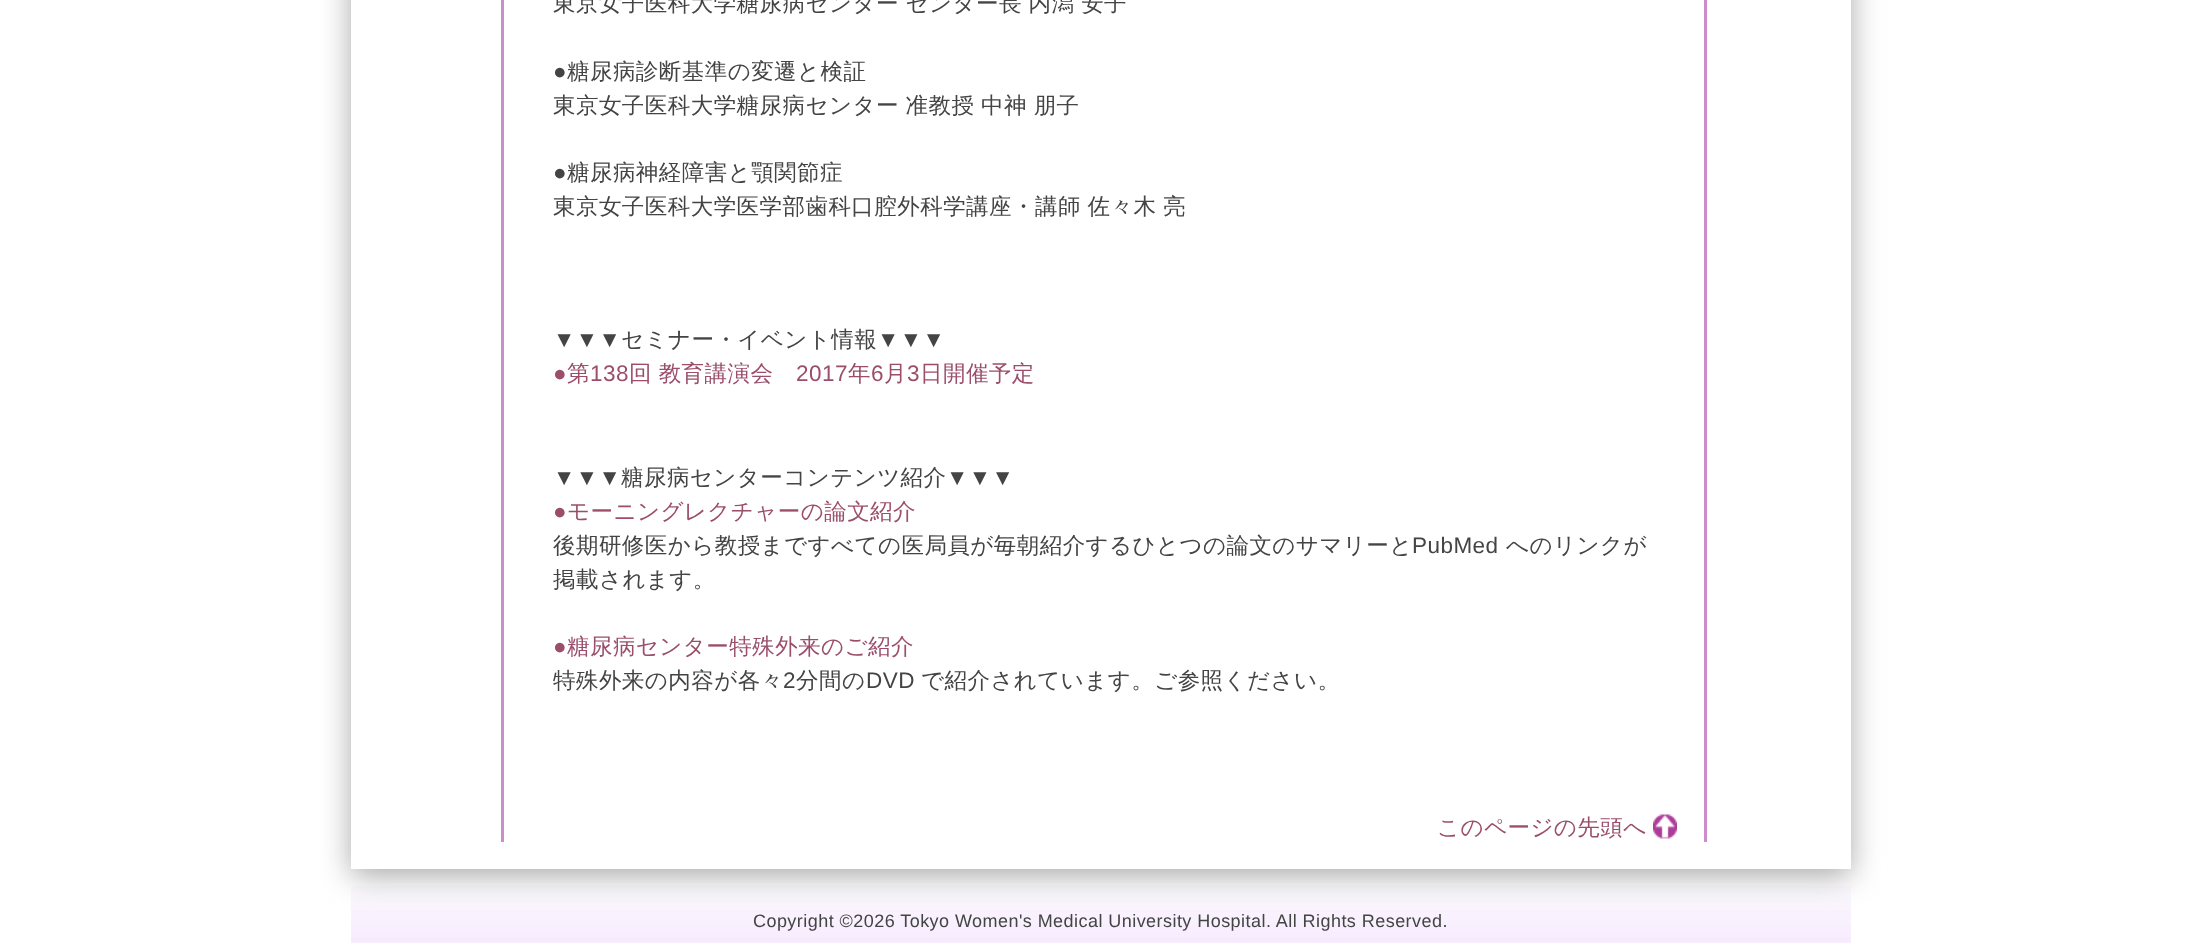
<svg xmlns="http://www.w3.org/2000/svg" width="2200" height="943">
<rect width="100%" height="100%" fill="#fff"/>
<image x="351" y="886" width="1500" height="57" href="media/2.png"/>
<rect x="351" y="-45" width="1500" height="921" fill="#a9a9a9" filter="blur(15px)"/>
<rect x="351" width="1500" height="869" fill="#fff"/>
<rect x="1704" width="3" height="842" fill="#cd8dcd"/>
<rect x="501" width="3" height="842" fill="#cd8dcd"/>
<text x="553" y="11" word-spacing="-0.5" style="font-family:WenQuanYi Zen Hei;font-size:22.5px;font-weight:500;letter-spacing:0.45px;fill:#444">東京女子医科大学糖尿病センター センター長 内潟 安子</text>
<text x="553" y="79" style="font-family:Liberation Sans;font-size:22.5px;letter-spacing:0.45px;fill:#444">●</text>
<text x="567" y="79" style="font-family:WenQuanYi Zen Hei;font-size:22.5px;font-weight:500;letter-spacing:0.45px;fill:#444">糖尿病診断基準の変遷と検証</text>
<text x="553" y="113" word-spacing="-0.5" style="font-family:WenQuanYi Zen Hei;font-size:22.5px;font-weight:500;letter-spacing:0.45px;fill:#444">東京女子医科大学糖尿病センター 准教授 中神 朋子</text>
<text x="553" y="180" style="font-family:Liberation Sans;font-size:22.5px;letter-spacing:0.45px;fill:#444">●</text>
<text x="567" y="180" style="font-family:WenQuanYi Zen Hei;font-size:22.5px;font-weight:500;letter-spacing:0.45px;fill:#444">糖尿病神経障害と顎関節症</text>
<text x="553" y="214" word-spacing="-0.5" style="font-family:WenQuanYi Zen Hei;font-size:22.5px;font-weight:500;letter-spacing:0.45px;fill:#444">東京女子医科大学医学部歯科口腔外科学講座・講師 佐々木 亮</text>
<text x="553" y="347" style="font-family:Liberation Sans;font-size:22.5px;letter-spacing:0.45px;fill:#444">▼▼▼</text>
<text x="621" y="347" style="font-family:WenQuanYi Zen Hei;font-size:22.5px;font-weight:500;letter-spacing:0.45px;fill:#444">セミナー・イベント情報</text>
<text x="877" y="347" style="font-family:Liberation Sans;font-size:22.5px;letter-spacing:0.45px;fill:#444">▼▼▼</text>
<text x="553" y="381" style="font-family:Liberation Sans;font-size:22.5px;letter-spacing:0.45px;fill:#9a4e6a">●</text>
<text x="567" y="381" style="font-family:WenQuanYi Zen Hei;font-size:22.5px;font-weight:500;letter-spacing:0.45px;fill:#9a4e6a">第</text>
<text x="590" y="381" style="font-family:Liberation Sans;font-size:22.5px;letter-spacing:0.45px;fill:#9a4e6a">138</text>
<text x="629" y="381" word-spacing="-0.5" style="font-family:WenQuanYi Zen Hei;font-size:22.5px;font-weight:500;letter-spacing:0.45px;fill:#9a4e6a">回 教育講演会</text>
<text x="796" y="381" style="font-family:Liberation Sans;font-size:22.5px;letter-spacing:0.45px;fill:#9a4e6a">2017</text>
<text x="848" y="381" style="font-family:WenQuanYi Zen Hei;font-size:22.5px;font-weight:500;letter-spacing:0.45px;fill:#9a4e6a">年</text>
<text x="871" y="381" style="font-family:Liberation Sans;font-size:22.5px;letter-spacing:0.45px;fill:#9a4e6a">6</text>
<text x="884" y="381" style="font-family:WenQuanYi Zen Hei;font-size:22.5px;font-weight:500;letter-spacing:0.45px;fill:#9a4e6a">月</text>
<text x="907" y="381" style="font-family:Liberation Sans;font-size:22.5px;letter-spacing:0.45px;fill:#9a4e6a">3</text>
<text x="920" y="381" style="font-family:WenQuanYi Zen Hei;font-size:22.5px;font-weight:500;letter-spacing:0.45px;fill:#9a4e6a">日開催予定</text>
<text x="553" y="485" style="font-family:Liberation Sans;font-size:22.5px;letter-spacing:0.45px;fill:#444">▼▼▼</text>
<text x="621" y="485" style="font-family:WenQuanYi Zen Hei;font-size:22.5px;font-weight:500;letter-spacing:0.45px;fill:#444">糖尿病センターコンテンツ紹介</text>
<text x="946" y="485" style="font-family:Liberation Sans;font-size:22.5px;letter-spacing:0.45px;fill:#444">▼▼▼</text>
<text x="553" y="519" style="font-family:Liberation Sans;font-size:22.5px;letter-spacing:0.45px;fill:#9a4e6a">●</text>
<text x="567" y="519" style="font-family:WenQuanYi Zen Hei;font-size:22.5px;font-weight:500;letter-spacing:0.45px;fill:#9a4e6a">モーニングレクチャーの論文紹介</text>
<text x="553" y="553" style="font-family:WenQuanYi Zen Hei;font-size:22.5px;font-weight:500;letter-spacing:0.45px;fill:#444">後期研修医から教授まですべての医局員が毎朝紹介するひとつの論文のサマリーと</text>
<text x="1412" y="553" style="font-family:Liberation Sans;font-size:22.5px;letter-spacing:0.45px;fill:#444">PubMed</text>
<text x="1506" y="553" style="font-family:WenQuanYi Zen Hei;font-size:22.5px;font-weight:500;letter-spacing:0.45px;fill:#444">へのリンクが</text>
<text x="553" y="587" style="font-family:WenQuanYi Zen Hei;font-size:22.5px;font-weight:500;letter-spacing:0.45px;fill:#444">掲載されます。</text>
<text x="553" y="654" style="font-family:Liberation Sans;font-size:22.5px;letter-spacing:0.45px;fill:#9a4e6a">●</text>
<text x="567" y="654" style="font-family:WenQuanYi Zen Hei;font-size:22.5px;font-weight:500;letter-spacing:0.45px;fill:#9a4e6a">糖尿病センター特殊外来のご紹介</text>
<text x="553" y="688" style="font-family:WenQuanYi Zen Hei;font-size:22.5px;font-weight:500;letter-spacing:0.45px;fill:#444">特殊外来の内容が各々</text>
<text x="783" y="688" style="font-family:Liberation Sans;font-size:22.5px;letter-spacing:0.45px;fill:#444">2</text>
<text x="796" y="688" style="font-family:WenQuanYi Zen Hei;font-size:22.5px;font-weight:500;letter-spacing:0.45px;fill:#444">分間の</text>
<text x="866" y="688" style="font-family:Liberation Sans;font-size:22.5px;letter-spacing:0.45px;fill:#444">DVD</text>
<text x="921" y="688" style="font-family:WenQuanYi Zen Hei;font-size:22.5px;font-weight:500;letter-spacing:0.45px;fill:#444">で紹介されています。ご参照ください。</text>
<image x="1653" y="814" width="24" height="25" href="media/1.png"/>
<text x="1437" y="835" style="font-family:WenQuanYi Zen Hei;font-size:22.5px;font-weight:500;letter-spacing:0.45px;fill:#9a4e6a">このページの先頭へ</text>
<text x="753" y="927" style="font-family:Liberation Sans;font-size:18px;letter-spacing:0.45px;fill:#444">Copyright ©2026 Tokyo Women's Medical University Hospital. All Rights Reserved.</text>
</svg>
